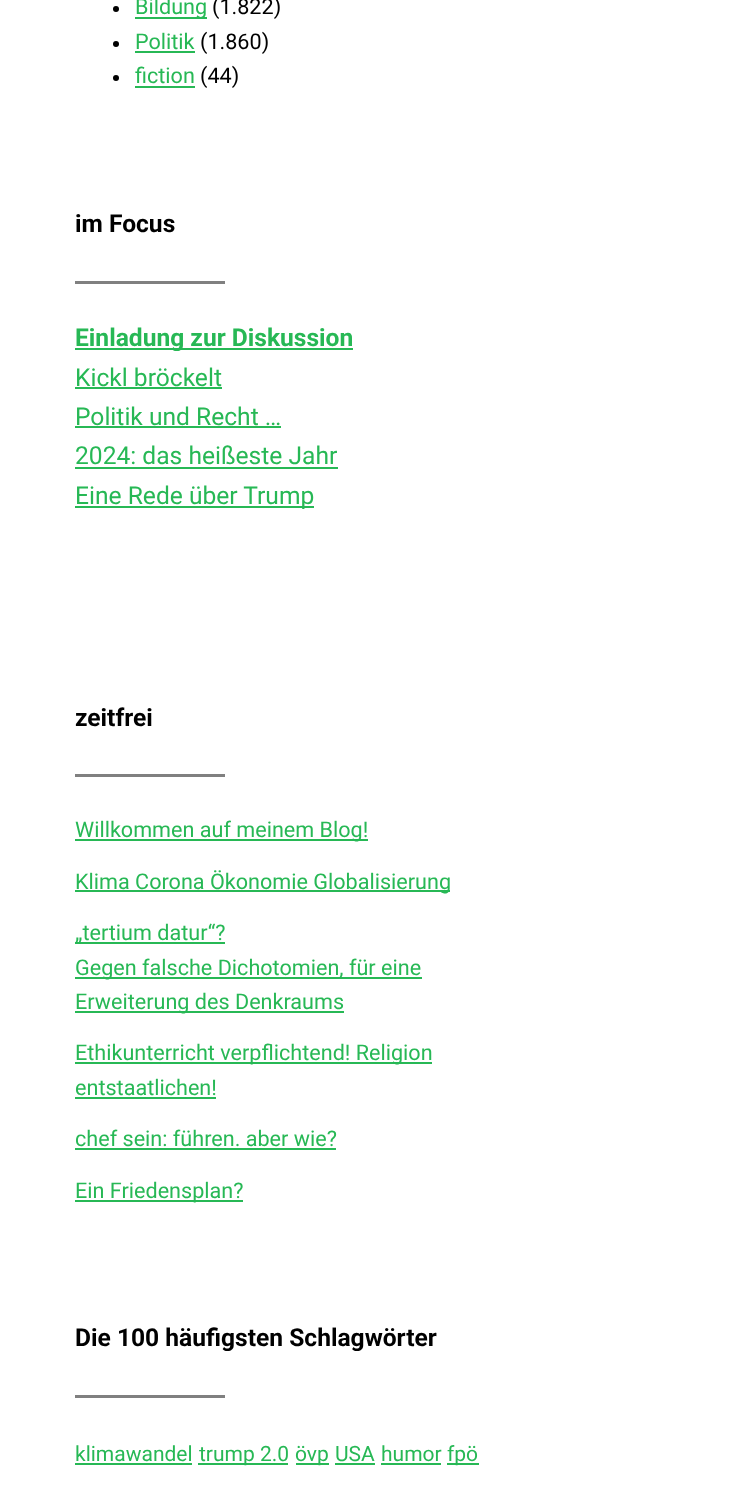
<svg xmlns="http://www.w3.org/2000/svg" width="748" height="1491">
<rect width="100%" height="100%" fill="#fff"/>
<circle cx="116" cy="9" r="3" fill="#000"/>
<rect x="135" y="17" width="72" height="2" fill="#27b855"/>
<text x="135" y="14" style="font-family:Roboto;font-size:21.6px;fill:#27b855">Bildung</text>
<text x="212" y="14" style="font-family:Roboto;font-size:21.6px;fill:#000">(1.822)</text>
<circle cx="116" cy="44" r="3" fill="#000"/>
<text x="135" y="49" style="font-family:Roboto;font-size:21.6px;fill:#27b855">Politik</text>
<rect x="135" y="51" width="60" height="2" fill="#27b855"/>
<text x="200" y="49" style="font-family:Roboto;font-size:21.6px;fill:#000">(1.860)</text>
<circle cx="116" cy="78" r="3" fill="#000"/>
<text x="135" y="83" style="font-family:Roboto;font-size:21.6px;fill:#27b855">fiction</text>
<rect x="135" y="86" width="60" height="2" fill="#27b855"/>
<text x="200" y="83" style="font-family:Roboto;font-size:21.6px;fill:#000">(44)</text>
<text x="75" y="232" style="font-family:Roboto;font-size:24.6px;font-weight:bold;fill:#000">im Focus</text>
<rect x="75" y="281" width="150" height="3" fill="#808080"/>
<rect x="75" y="348" width="278" height="2" fill="#27b855"/>
<text x="75" y="346" style="font-family:Roboto;font-size:24.6px;font-weight:bold;fill:#27b855">Einladung zur Diskussion</text>
<text x="75" y="386" style="font-family:Roboto;font-size:24.6px;fill:#27b855">Kickl bröckelt</text>
<rect x="75" y="387" width="147" height="2" fill="#27b855"/>
<text x="75" y="425" style="font-family:Roboto;font-size:24.6px;fill:#27b855">Politik und Recht …</text>
<rect x="75" y="426" width="206" height="2" fill="#27b855"/>
<text x="75" y="464" style="font-family:Roboto;font-size:24.6px;fill:#27b855">2024: das heißeste Jahr</text>
<rect x="75" y="467" width="263" height="2" fill="#27b855"/>
<rect x="75" y="506" width="239" height="2" fill="#27b855"/>
<text x="75" y="504" style="font-family:Roboto;font-size:24.6px;fill:#27b855">Eine Rede über Trump</text>
<text x="75" y="726" style="font-family:Roboto;font-size:24.6px;font-weight:bold;fill:#000">zeitfrei</text>
<rect x="75" y="774" width="150" height="3" fill="#808080"/>
<rect x="75" y="839" width="293" height="2" fill="#27b855"/>
<text x="75" y="837" style="font-family:Roboto;font-size:21.6px;fill:#27b855">Willkommen auf meinem Blog!</text>
<rect x="75" y="890" width="375" height="2" fill="#27b855"/>
<text x="75" y="889" style="font-family:Roboto;font-size:21.6px;fill:#27b855">Klima Corona Ökonomie Globalisierung</text>
<rect x="75" y="942" width="150" height="2" fill="#27b855"/>
<text x="75" y="940" style="font-family:Roboto;font-size:21.6px;fill:#27b855">„tertium datur“?</text>
<rect x="75" y="977" width="347" height="2" fill="#27b855"/>
<text x="75" y="975" style="font-family:Roboto;font-size:21.6px;fill:#27b855">Gegen falsche Dichotomien, für eine</text>
<rect x="75" y="1011" width="269" height="2" fill="#27b855"/>
<text x="75" y="1009" style="font-family:Roboto;font-size:21.6px;fill:#27b855">Erweiterung des Denkraums</text>
<rect x="75" y="1062" width="357" height="2" fill="#27b855"/>
<text x="75" y="1060" style="font-family:Roboto;font-size:21.6px;fill:#27b855">Ethikunterricht verpflichtend! Religion</text>
<text x="75" y="1095" style="font-family:Roboto;font-size:21.6px;fill:#27b855">entstaatlichen!</text>
<rect x="75" y="1097" width="141" height="2" fill="#27b855"/>
<text x="75" y="1146" style="font-family:Roboto;font-size:21.6px;fill:#27b855">chef sein: führen. aber wie?</text>
<rect x="75" y="1148" width="261" height="2" fill="#27b855"/>
<rect x="75" y="1200" width="168" height="2" fill="#27b855"/>
<text x="75" y="1198" style="font-family:Roboto;font-size:21.6px;fill:#27b855">Ein Friedensplan?</text>
<text x="75" y="1346" style="font-family:Roboto;font-size:24.6px;font-weight:bold;fill:#000">Die 100 häufigsten Schlagwörter</text>
<rect x="75" y="1395" width="150" height="3" fill="#808080"/>
<text x="75" y="1461" style="font-family:Roboto;font-size:21px;fill:#27b855">klimawandel</text>
<rect x="75" y="1463" width="117" height="2" fill="#27b855"/>
<rect x="198" y="1463" width="90" height="2" fill="#27b855"/>
<text x="199" y="1461" style="font-family:Roboto;font-size:21px;fill:#27b855">trump 2.0</text>
<rect x="296" y="1463" width="33" height="2" fill="#27b855"/>
<text x="295" y="1461" style="font-family:Roboto;font-size:21px;fill:#27b855">övp</text>
<text x="335" y="1461" style="font-family:Roboto;font-size:21px;fill:#27b855">USA</text>
<rect x="335" y="1463" width="40" height="2" fill="#27b855"/>
<text x="381" y="1461" style="font-family:Roboto;font-size:21px;fill:#27b855">humor</text>
<rect x="381" y="1463" width="60" height="2" fill="#27b855"/>
<rect x="447" y="1463" width="32" height="2" fill="#27b855"/>
<text x="447" y="1461" style="font-family:Roboto;font-size:21px;fill:#27b855">fpö</text>
</svg>
